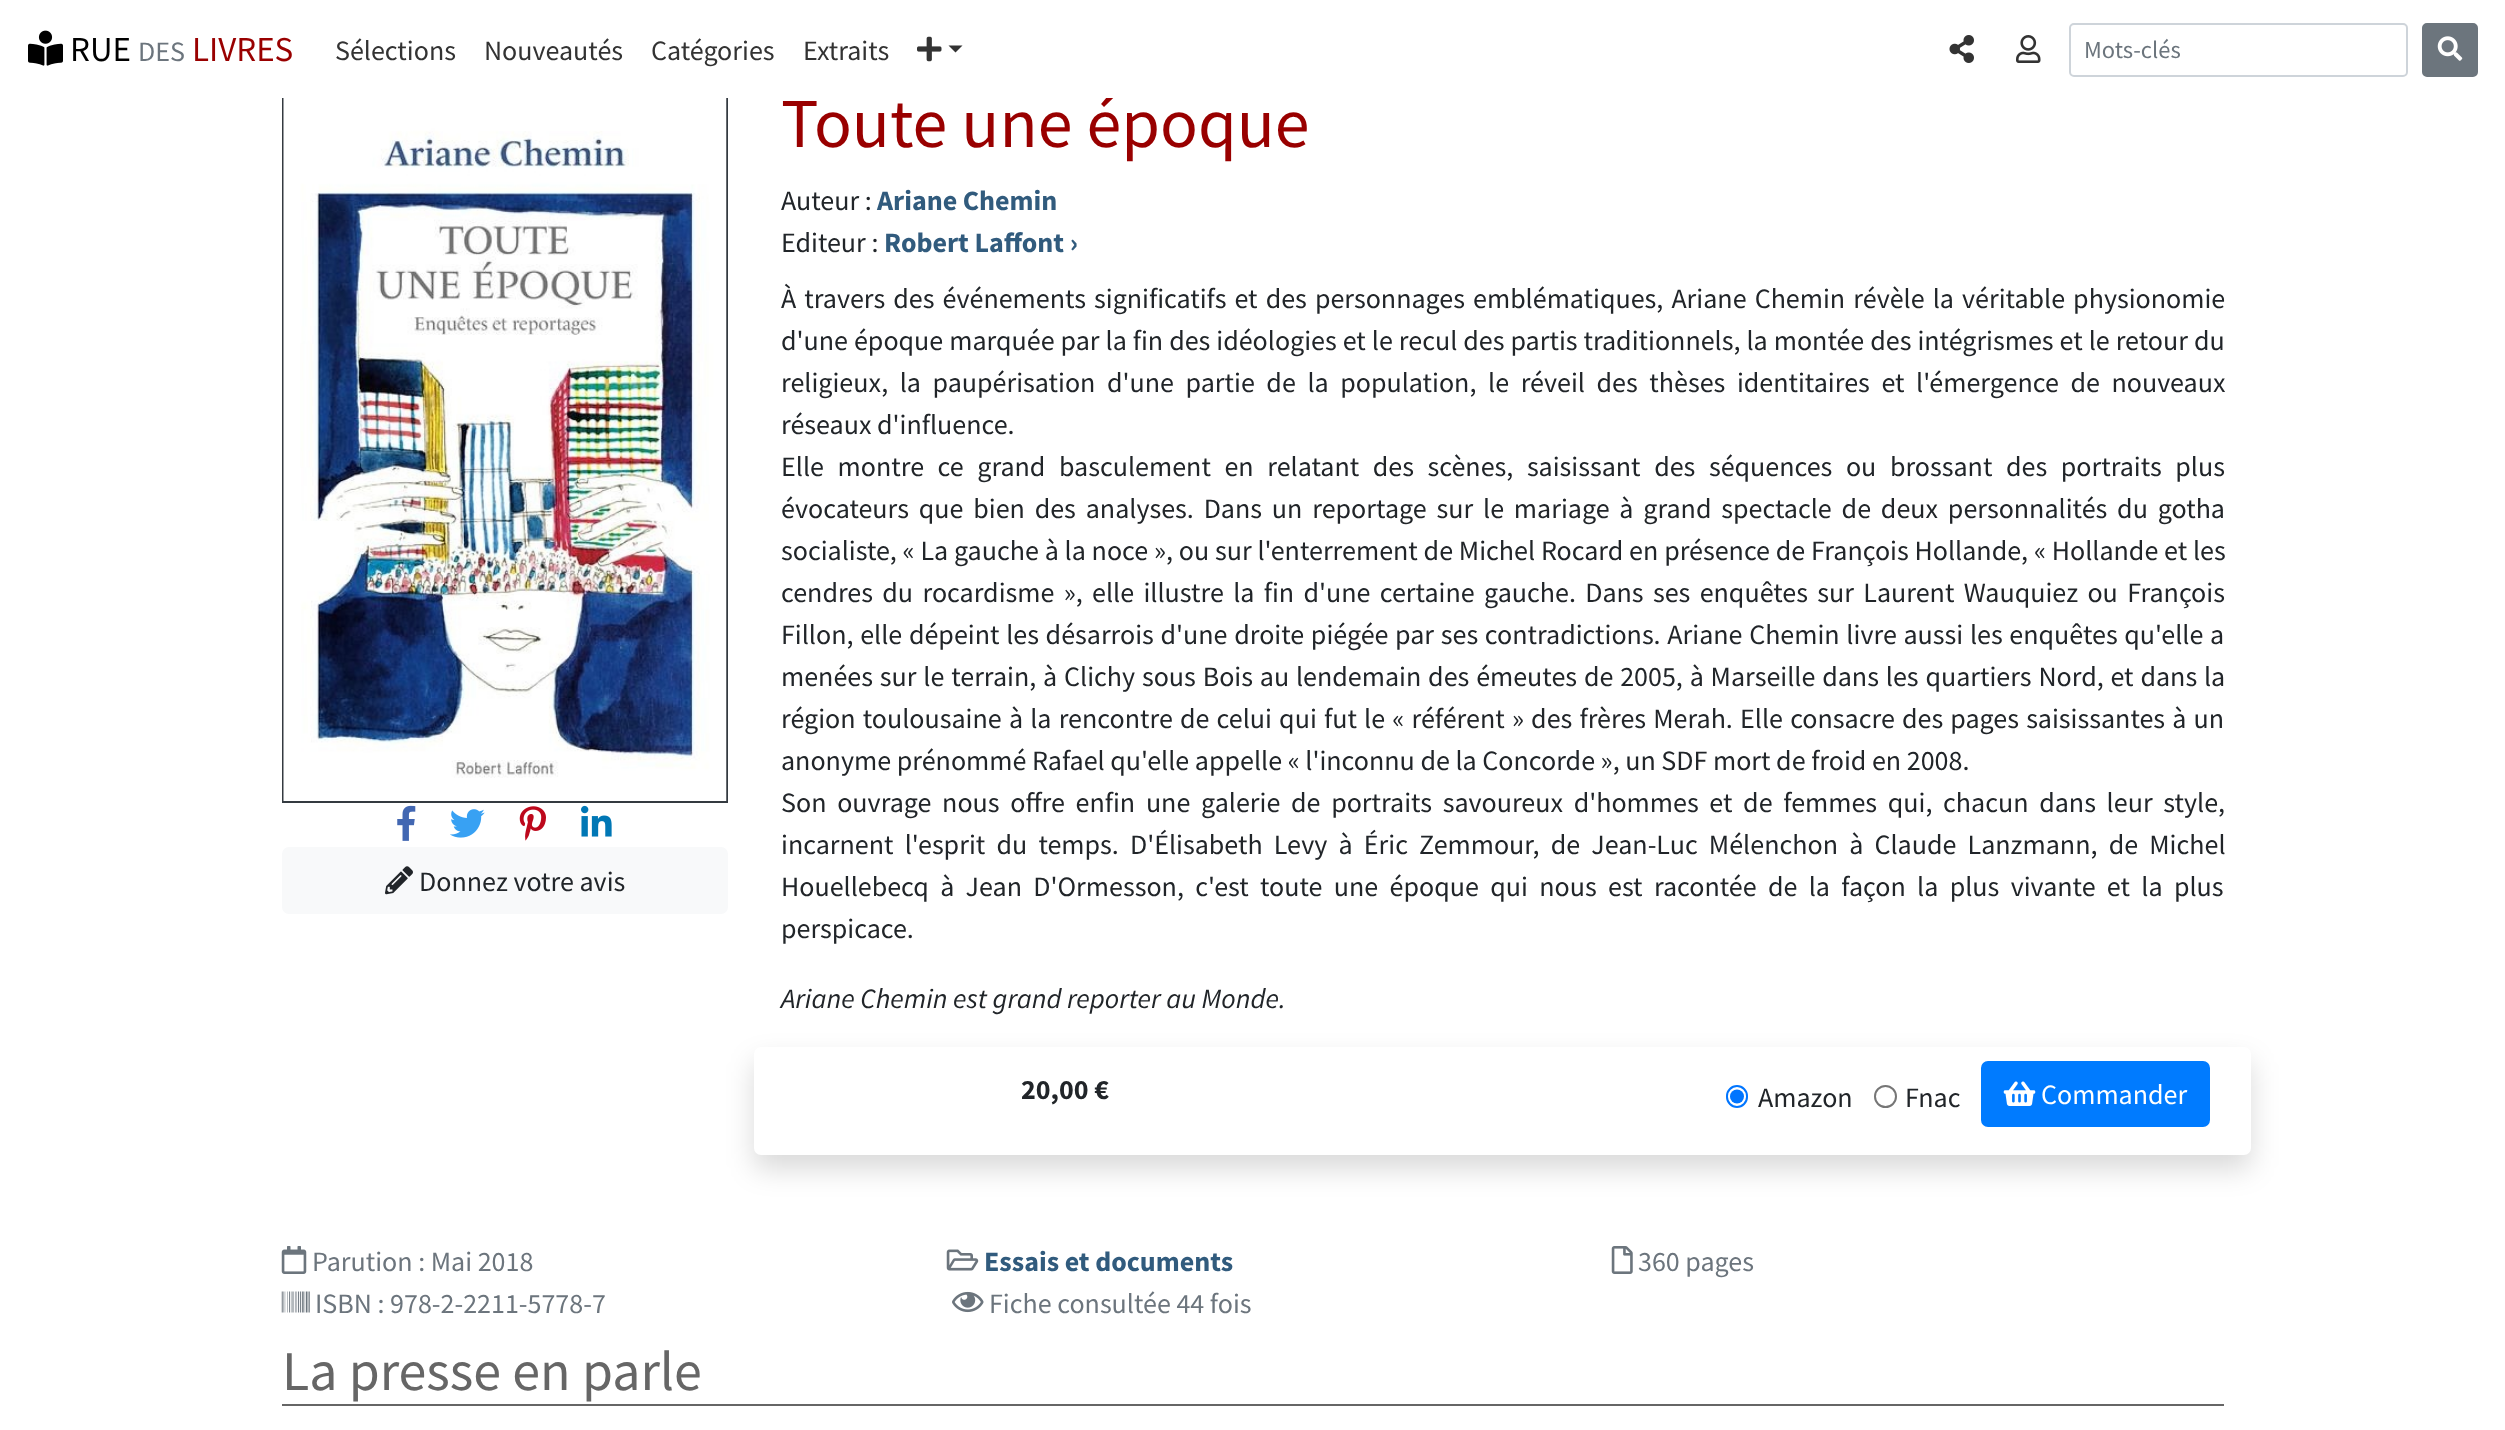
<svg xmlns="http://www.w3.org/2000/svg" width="2505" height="1430">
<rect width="100%" height="100%" fill="#fff"/>
<rect x="283" y="96" width="444" height="706" fill="none" stroke="#343a40" stroke-width="2"/>
<text x="781" y="147" style="font-family:Source Sans Pro;font-size:70px;fill:#900">Toute une époque</text>
<rect x="282" y="92" width="833" height="6" fill="#fff"/>
<image x="28" y="30" width="35" height="36" href="media/1.png"/>
<text x="70" y="61" style="font-family:Source Sans Pro;font-size:35px;fill:#000">RUE</text>
<text x="138" y="61" style="font-family:Source Sans Pro;font-size:28px;fill:#6c757d">DES</text>
<text x="192" y="61" style="font-family:Source Sans Pro;font-size:35px;fill:#900">LIVRES</text>
<text x="335" y="60" style="font-family:Source Sans Pro;font-size:28px;fill:#333">Sélections</text>
<text x="484" y="60" style="font-family:Source Sans Pro;font-size:28px;fill:#333">Nouveautés</text>
<text x="651" y="60" style="font-family:Source Sans Pro;font-size:28px;fill:#333">Catégories</text>
<text x="803" y="60" style="font-family:Source Sans Pro;font-size:28px;fill:#333">Extraits</text>
<image x="917" y="36" width="25" height="26" href="media/2.png"/>
<path d="M948.5 45.5h14l-7 7z" fill="#333"/>
<image x="1949" y="35" width="25" height="28" href="media/3.png"/>
<image x="2016" y="35" width="25" height="28" href="media/4.png"/>
<rect x="2070" y="24" width="337" height="52" rx="4" fill="none" stroke="#ced4da" stroke-width="2"/>
<text x="2084" y="58" style="font-family:Source Sans Pro;font-size:24.5px;fill:#6c757d">Mots-clés</text>
<rect x="2423" y="24" width="54" height="52" rx="4" fill="#6c757d" stroke="#6c757d" stroke-width="2"/>
<image x="2437" y="36" width="26" height="25" href="media/5.png"/>
<image x="283" y="98" width="444" height="703" href="media/6.png"/>
<image x="397" y="805" width="19" height="36" href="media/7.png"/>
<image x="450" y="809" width="35" height="29" href="media/8.png"/>
<image x="519" y="806" width="27" height="35" href="media/9.png"/>
<image x="581" y="805" width="31" height="32" href="media/10.png"/>
<rect x="282" y="847" width="446" height="67" rx="7" fill="#f8f9fa"/>
<image x="385" y="866" width="28" height="29" href="media/11.png"/>
<text x="419" y="891" style="font-family:Source Sans Pro;font-size:28px;fill:#212529">Donnez votre avis</text>
<text x="781" y="210" style="font-family:Source Sans Pro;font-size:28px;fill:#212529">Auteur :</text>
<text x="877" y="210" style="font-family:Source Sans Pro;font-size:28px;font-weight:bold;fill:#315b7d">Ariane Chemin</text>
<text x="781" y="252" style="font-family:Source Sans Pro;font-size:28px;fill:#212529">Editeur :</text>
<text x="884" y="252" style="font-family:Source Sans Pro;font-size:28px;font-weight:bold;fill:#315b7d">Robert Laffont ›</text>
<text x="781" y="308" word-spacing="2.5" style="font-family:Source Sans Pro;font-size:28px;fill:#212529">À travers des événements significatifs et des personnages emblématiques, Ariane Chemin révèle la véritable physionomie</text>
<text x="781" y="350" word-spacing="0.4" style="font-family:Source Sans Pro;font-size:28px;fill:#212529">d'une époque marquée par la fin des idéologies et le recul des partis traditionnels, la montée des intégrismes et le retour du</text>
<text x="781" y="392" word-spacing="6" style="font-family:Source Sans Pro;font-size:28px;fill:#212529">religieux, la paupérisation d'une partie de la population, le réveil des thèses identitaires et l'émergence de nouveaux</text>
<text x="781" y="434" style="font-family:Source Sans Pro;font-size:28px;fill:#212529">réseaux d'influence.</text>
<text x="781" y="476" word-spacing="8" style="font-family:Source Sans Pro;font-size:28px;fill:#212529">Elle montre ce grand basculement en relatant des scènes, saisissant des séquences ou brossant des portraits plus</text>
<text x="781" y="518" word-spacing="4.25" style="font-family:Source Sans Pro;font-size:28px;fill:#212529">évocateurs que bien des analyses. Dans un reportage sur le mariage à grand spectacle de deux personnalités du gotha</text>
<text x="781" y="560" word-spacing="0.2" style="font-family:Source Sans Pro;font-size:28px;fill:#212529">socialiste, « La gauche à la noce », ou sur l'enterrement de Michel Rocard en présence de François Hollande, « Hollande et les</text>
<text x="781" y="602" word-spacing="3.75" style="font-family:Source Sans Pro;font-size:28px;fill:#212529">cendres du rocardisme », elle illustre la fin d'une certaine gauche. Dans ses enquêtes sur Laurent Wauquiez ou François</text>
<text x="781" y="644" word-spacing="1.1" style="font-family:Source Sans Pro;font-size:28px;fill:#212529">Fillon, elle dépeint les désarrois d'une droite piégée par ses contradictions. Ariane Chemin livre aussi les enquêtes qu'elle a</text>
<text x="781" y="686" word-spacing="1.25" style="font-family:Source Sans Pro;font-size:28px;fill:#212529">menées sur le terrain, à Clichy sous Bois au lendemain des émeutes de 2005, à Marseille dans les quartiers Nord, et dans la</text>
<text x="781" y="728" word-spacing="1.6" style="font-family:Source Sans Pro;font-size:28px;fill:#212529">région toulousaine à la rencontre de celui qui fut le « référent » des frères Merah. Elle consacre des pages saisissantes à un</text>
<text x="781" y="770" style="font-family:Source Sans Pro;font-size:28px;fill:#212529">anonyme prénommé Rafael qu'elle appelle « l'inconnu de la Concorde », un SDF mort de froid en 2008.</text>
<text x="781" y="812" word-spacing="5.1" style="font-family:Source Sans Pro;font-size:28px;fill:#212529">Son ouvrage nous offre enfin une galerie de portraits savoureux d'hommes et de femmes qui, chacun dans leur style,</text>
<text x="781" y="854" word-spacing="5.6" style="font-family:Source Sans Pro;font-size:28px;fill:#212529">incarnent l'esprit du temps. D'Élisabeth Levy à Éric Zemmour, de Jean-Luc Mélenchon à Claude Lanzmann, de Michel</text>
<text x="781" y="896" word-spacing="5.75" style="font-family:Source Sans Pro;font-size:28px;fill:#212529">Houellebecq à Jean D'Ormesson, c'est toute une époque qui nous est racontée de la façon la plus vivante et la plus</text>
<text x="781" y="938" style="font-family:Source Sans Pro;font-size:28px;fill:#212529">perspicace.</text>
<text x="781" y="1008" style="font-family:Source Sans Pro;font-size:28px;font-style:italic;fill:#212529">Ariane Chemin est grand reporter au Monde.</text>
<rect x="754" y="1061" width="1497" height="108" rx="7" fill="#00000026" filter="blur(14px)"/>
<rect x="754" y="1047" width="1497" height="108" rx="7" fill="#fff"/>
<text x="1021" y="1099" style="font-family:Source Sans Pro;font-size:28px;font-weight:bold;fill:#212529">20,00 €</text>
<rect x="1727" y="1086" width="20" height="21" rx="10" fill="none" stroke="#0075ff" stroke-width="2"/>
<circle cx="1737" cy="1096.5" r="7" fill="#0075ff"/>
<text x="1758" y="1107" style="font-family:Source Sans Pro;font-size:28px;fill:#212529">Amazon</text>
<circle cx="1885.5" cy="1096.5" r="10.5" fill="none" stroke="#767676" stroke-width="2"/>
<text x="1905" y="1107" style="font-family:Source Sans Pro;font-size:28px;fill:#212529">Fnac</text>
<rect x="1982" y="1062" width="227" height="64" rx="6" fill="#007bff" stroke="#007bff" stroke-width="2"/>
<image x="2003" y="1081" width="33" height="25" href="media/12.png"/>
<text x="2041" y="1104" style="font-family:Source Sans Pro;font-size:28px;fill:#fff">Commander</text>
<image x="281" y="1246" width="26" height="28" href="media/13.png"/>
<text x="312" y="1271" style="font-family:Source Sans Pro;font-size:28px;fill:#6c757d">Parution : Mai 2018</text>
<image x="946" y="1249" width="33" height="22" href="media/14.png"/>
<text x="984" y="1271" style="font-family:Source Sans Pro;font-size:28px;font-weight:bold;fill:#315b7d">Essais et documents</text>
<image x="1611" y="1246" width="22" height="28" href="media/15.png"/>
<text x="1638" y="1271" style="font-family:Source Sans Pro;font-size:28px;fill:#6c757d">360 pages</text>
<image x="281" y="1291" width="29" height="22" href="media/16.png"/>
<text x="315" y="1313" style="font-family:Source Sans Pro;font-size:28px;fill:#6c757d">ISBN : 978-2-2211-5778-7</text>
<image x="952" y="1291" width="32" height="22" href="media/17.png"/>
<text x="989" y="1313" style="font-family:Source Sans Pro;font-size:28px;fill:#6c757d">Fiche consultée 44 fois</text>
<rect x="282" y="1404" width="1942" height="2" fill="#666"/>
<text x="282" y="1390" style="font-family:Source Sans Pro;font-size:56px;fill:#666">La presse en parle</text>
</svg>
